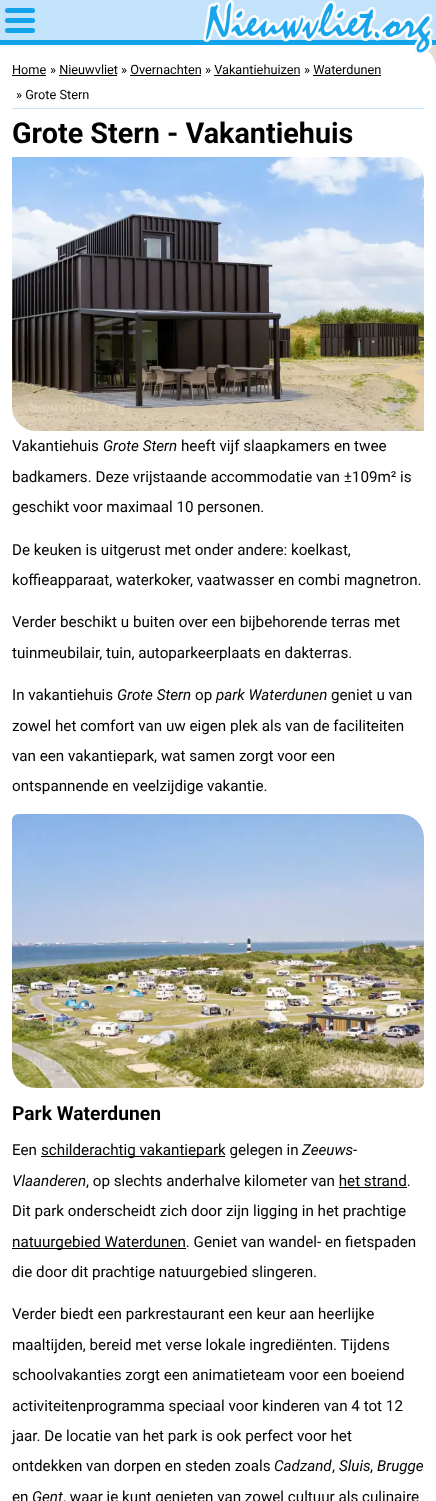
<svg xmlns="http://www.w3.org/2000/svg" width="436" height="1501">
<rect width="100%" height="100%" fill="#e4dad8"/>
<rect width="436" height="40" fill="#c2e3f9"/>
<rect y="40" width="436" height="5" fill="#12a3eb"/>
<rect x="5" y="8" width="30" height="5" rx="2.5" fill="#12a3eb"/>
<rect x="5" y="18" width="30" height="5" rx="2.5" fill="#12a3eb"/>
<rect x="5" y="28" width="30" height="5" rx="2.5" fill="#12a3eb"/>
<path d="M0 45h412c13.5 0 24 10.5 24 24v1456h-412c-13.5 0-24-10.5-24-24z" fill="#fff"/>
<image x="203" y="0" width="230" height="55" href="media/1.png"/>
<text x="12" y="74" style="font-family:Roboto;font-size:12.75px;fill:#000">Home</text>
<rect x="12" y="75" width="34" height="1" fill="#000"/>
<text x="50" y="74" style="font-family:Roboto;font-size:12.75px;fill:#000">» Nieuwvliet</text>
<rect x="59" y="75" width="58" height="1" fill="#000"/>
<text x="121" y="74" style="font-family:Roboto;font-size:12.75px;fill:#000">» Overnachten</text>
<rect x="130" y="75" width="71" height="1" fill="#000"/>
<text x="205" y="74" style="font-family:Roboto;font-size:12.75px;fill:#000">» Vakantiehuizen</text>
<rect x="214" y="75" width="86" height="1" fill="#000"/>
<text x="304" y="74" style="font-family:Roboto;font-size:12.75px;fill:#000">» Waterdunen</text>
<rect x="313" y="75" width="68" height="1" fill="#000"/>
<text x="16" y="99" style="font-family:Roboto;font-size:12.75px;fill:#000">» Grote Stern</text>
<rect x="12" y="108" width="412" height="1" fill="#c2e3f9"/>
<text x="12" y="143" style="font-family:Roboto;font-size:28.75px;font-weight:bold;fill:#000">Grote Stern - Vakantiehuis</text>
<image x="12" y="157" width="412" height="274" href="media/2.png"/>
<text x="12" y="451" style="font-family:Roboto;font-size:15.2px;fill:#000">Vakantiehuis</text>
<text x="103" y="451" style="font-family:Roboto;font-size:15.2px;font-style:italic;fill:#000">Grote Stern</text>
<text x="181" y="451" style="font-family:Roboto;font-size:15.2px;fill:#000">heeft vijf slaapkamers en twee</text>
<text x="12" y="482" style="font-family:Roboto;font-size:15.2px;fill:#000">badkamers. Deze vrijstaande accommodatie van ±109m² is</text>
<text x="12" y="512" style="font-family:Roboto;font-size:15.2px;fill:#000">geschikt voor maximaal 10 personen.</text>
<text x="12" y="555" style="font-family:Roboto;font-size:15.2px;fill:#000">De keuken is uitgerust met onder andere: koelkast,</text>
<text x="12" y="585" style="font-family:Roboto;font-size:15.2px;fill:#000">koffieapparaat, waterkoker, vaatwasser en combi magnetron.</text>
<text x="12" y="627" style="font-family:Roboto;font-size:15.2px;fill:#000">Verder beschikt u buiten over een bijbehorende terras met</text>
<text x="12" y="658" style="font-family:Roboto;font-size:15.2px;fill:#000">tuinmeubilair, tuin, autoparkeerplaats en dakterras.</text>
<text x="12" y="700" style="font-family:Roboto;font-size:15.2px;fill:#000">In vakantiehuis</text>
<text x="117" y="700" style="font-family:Roboto;font-size:15.2px;font-style:italic;fill:#000">Grote Stern</text>
<text x="195" y="700" style="font-family:Roboto;font-size:15.2px;fill:#000">op</text>
<text x="216" y="700" style="font-family:Roboto;font-size:15.2px;font-style:italic;fill:#000">park Waterdunen</text>
<text x="331" y="700" style="font-family:Roboto;font-size:15.2px;fill:#000">geniet u van</text>
<text x="12" y="731" style="font-family:Roboto;font-size:15.2px;fill:#000">zowel het comfort van uw eigen plek als van de faciliteiten</text>
<text x="12" y="761" style="font-family:Roboto;font-size:15.2px;fill:#000">van een vakantiepark, wat samen zorgt voor een</text>
<text x="12" y="791" style="font-family:Roboto;font-size:15.2px;fill:#000">ontspannende en veelzijdige vakantie.</text>
<image x="12" y="814" width="412" height="274" href="media/3.png"/>
<text x="12" y="1120" style="font-family:Roboto;font-size:19.25px;font-weight:bold;fill:#000">Park Waterdunen</text>
<text x="12" y="1155" style="font-family:Roboto;font-size:15.2px;fill:#000">Een</text>
<rect x="41" y="1156" width="184" height="1" fill="#000"/>
<text x="41" y="1155" style="font-family:Roboto;font-size:15.2px;fill:#000">schilderachtig vakantiepark gelegen in</text>
<text x="302" y="1155" style="font-family:Roboto;font-size:15.2px;font-style:italic;fill:#000">Zeeuws-</text>
<text x="12" y="1186" style="font-family:Roboto;font-size:15.2px;font-style:italic;fill:#000">Vlaanderen</text>
<text x="86" y="1186" style="font-family:Roboto;font-size:15.2px;fill:#000">, op slechts anderhalve kilometer van het strand.</text>
<rect x="339" y="1187" width="68" height="1" fill="#000"/>
<text x="12" y="1216" style="font-family:Roboto;font-size:15.2px;fill:#000">Dit park onderscheidt zich door zijn ligging in het prachtige</text>
<rect x="12" y="1248" width="174" height="1" fill="#000"/>
<text x="12" y="1247" style="font-family:Roboto;font-size:15.2px;fill:#000">natuurgebied Waterdunen. Geniet van wandel- en fietspaden</text>
<text x="12" y="1277" style="font-family:Roboto;font-size:15.2px;fill:#000">die door dit prachtige natuurgebied slingeren.</text>
<text x="12" y="1319" style="font-family:Roboto;font-size:15.2px;fill:#000">Verder biedt een parkrestaurant een keur aan heerlijke</text>
<text x="12" y="1350" style="font-family:Roboto;font-size:15.2px;fill:#000">maaltijden, bereid met verse lokale ingrediënten. Tijdens</text>
<text x="12" y="1380" style="font-family:Roboto;font-size:15.2px;fill:#000">schoolvakanties zorgt een animatieteam voor een boeiend</text>
<text x="12" y="1411" style="font-family:Roboto;font-size:15.2px;fill:#000">activiteitenprogramma speciaal voor kinderen van 4 tot 12</text>
<text x="12" y="1441" style="font-family:Roboto;font-size:15.2px;fill:#000">jaar. De locatie van het park is ook perfect voor het</text>
<text x="12" y="1471" style="font-family:Roboto;font-size:15.2px;fill:#000">ontdekken van dorpen en steden zoals</text>
<text x="274" y="1471" style="font-family:Roboto;font-size:15.2px;font-style:italic;fill:#000">Cadzand</text>
<text x="332" y="1471" style="font-family:Roboto;font-size:15.2px;fill:#000">,</text>
<text x="339" y="1471" style="font-family:Roboto;font-size:15.2px;font-style:italic;fill:#000">Sluis</text>
<text x="370" y="1471" style="font-family:Roboto;font-size:15.2px;fill:#000">,</text>
<text x="377" y="1471" style="font-family:Roboto;font-size:15.2px;font-style:italic;fill:#000">Brugge</text>
<text x="12" y="1502" style="font-family:Roboto;font-size:15.2px;fill:#000">en</text>
<text x="32" y="1502" style="font-family:Roboto;font-size:15.2px;font-style:italic;fill:#000">Gent</text>
<text x="63" y="1502" style="font-family:Roboto;font-size:15.2px;fill:#000">, waar je kunt genieten van zowel cultuur als culinaire</text>
</svg>
